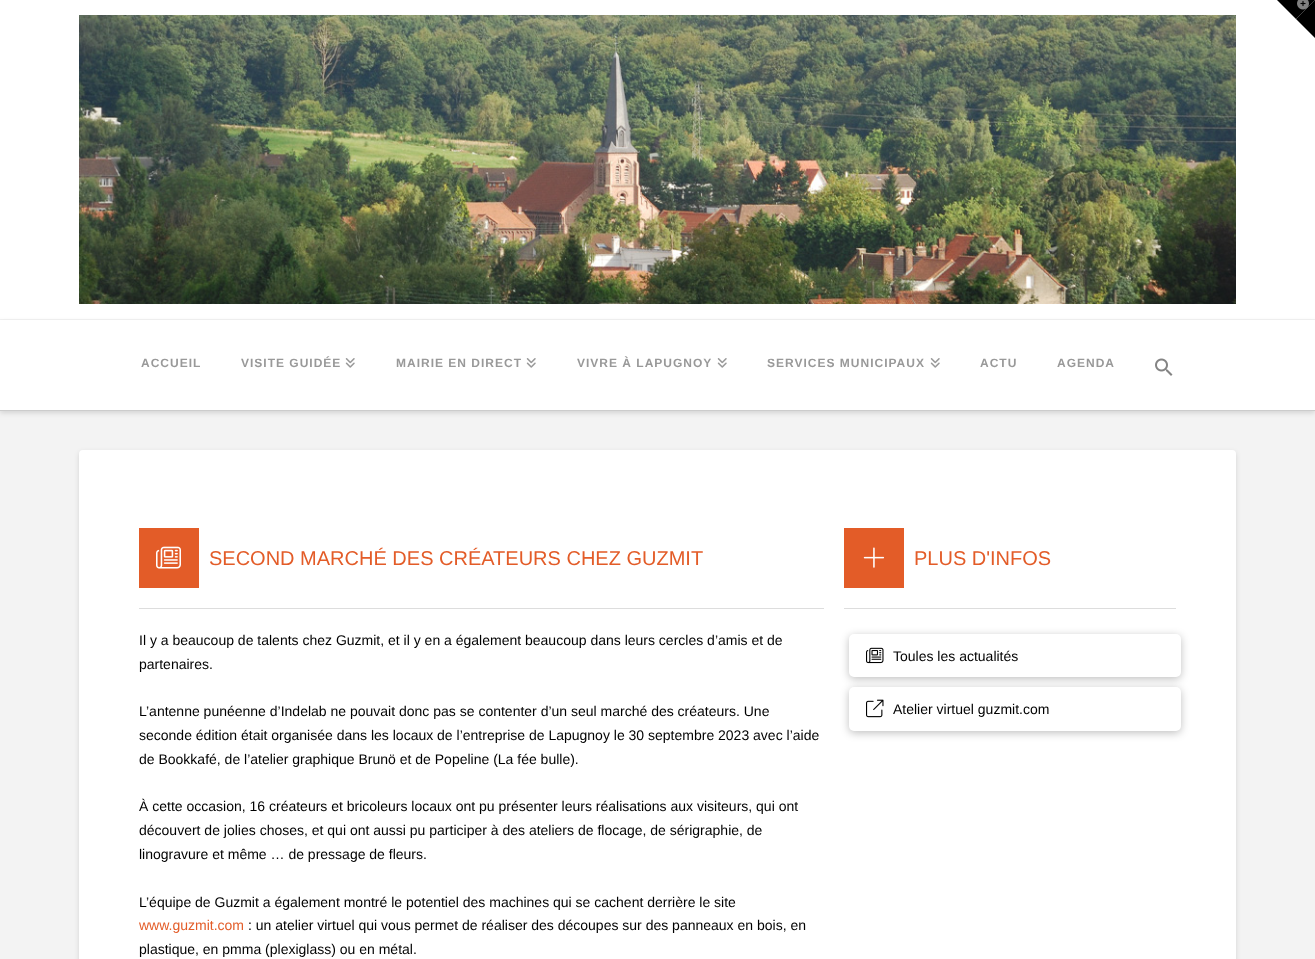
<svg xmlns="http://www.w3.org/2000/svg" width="1315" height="959">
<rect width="100%" height="100%" fill="#f3f3f3"/>
<rect width="1315" height="319" fill="#fff"/>
<path d="M1277 0h38l-19 19z" fill="#000"/>
<path d="M1315 0v38l-19-19z" fill="#000"/>
<image x="1297" y="0" width="12" height="10" href="media/1.png"/>
<image x="79" y="15" width="1157" height="289" href="media/2.png"/>
<rect y="322" width="1315" height="91" fill="#00000021" filter="blur(2.5px)"/>
<rect y="320" width="1315" height="90" fill="#fff"/>
<rect y="410" width="1315" height="1" fill="#ccc"/>
<text x="141" y="367" style="font-family:Liberation Sans;font-size:12px;font-weight:bold;letter-spacing:1px;fill:#999">ACCUEIL</text>
<text x="241" y="367" style="font-family:Liberation Sans;font-size:12px;font-weight:bold;letter-spacing:1px;fill:#999">VISITE GUIDÉE</text>
<image x="345" y="358" width="10" height="10" href="media/3.png"/>
<text x="396" y="367" style="font-family:Liberation Sans;font-size:12px;font-weight:bold;letter-spacing:1px;fill:#999">MAIRIE EN DIRECT</text>
<image x="526" y="358" width="10" height="10" href="media/3.png"/>
<text x="577" y="367" style="font-family:Liberation Sans;font-size:12px;font-weight:bold;letter-spacing:1px;fill:#999">VIVRE À LAPUGNOY</text>
<image x="717" y="358" width="10" height="10" href="media/3.png"/>
<text x="767" y="367" style="font-family:Liberation Sans;font-size:12px;font-weight:bold;letter-spacing:1px;fill:#999">SERVICES MUNICIPAUX</text>
<image x="930" y="358" width="10" height="10" href="media/3.png"/>
<text x="980" y="367" style="font-family:Liberation Sans;font-size:12px;font-weight:bold;letter-spacing:1px;fill:#999">ACTU</text>
<text x="1057" y="367" style="font-family:Liberation Sans;font-size:12px;font-weight:bold;letter-spacing:1px;fill:#999">AGENDA</text>
<image x="1155" y="358" width="18" height="18" href="media/4.png"/>
<rect x="79" y="452" width="1157" height="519" rx="4" fill="#00000021" filter="blur(2.5px)"/>
<rect x="79" y="450" width="1157" height="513" rx="4" fill="#fff"/>
<rect x="139" y="528" width="60" height="60" fill="#e35c28"/>
<image x="156" y="546" width="25" height="23" href="media/5.png"/>
<text x="209" y="565" style="font-family:Liberation Sans;font-size:20px;fill:#e35c28">SECOND MARCHÉ DES CRÉATEURS CHEZ GUZMIT</text>
<rect x="139" y="608" width="685" height="1" fill="#ddd"/>
<text x="139" y="645" style="font-family:Liberation Sans;font-size:14px;fill:#000">Il y a beaucoup de talents chez Guzmit, et il y en a également beaucoup dans leurs cercles d’amis et de</text>
<text x="139" y="669" style="font-family:Liberation Sans;font-size:14px;fill:#000">partenaires.</text>
<text x="139" y="716" style="font-family:Liberation Sans;font-size:14px;fill:#000">L’antenne punéenne d’Indelab ne pouvait donc pas se contenter d’un seul marché des créateurs. Une</text>
<text x="139" y="740" style="font-family:Liberation Sans;font-size:14px;fill:#000">seconde édition était organisée dans les locaux de l’entreprise de Lapugnoy le 30 septembre 2023 avec l’aide</text>
<text x="139" y="764" style="font-family:Liberation Sans;font-size:14px;fill:#000">de Bookkafé, de l’atelier graphique Brunö et de Popeline (La fée bulle).</text>
<text x="139" y="811" style="font-family:Liberation Sans;font-size:14px;fill:#000">À cette occasion, 16 créateurs et bricoleurs locaux ont pu présenter leurs réalisations aux visiteurs, qui ont</text>
<text x="139" y="835" style="font-family:Liberation Sans;font-size:14px;fill:#000">découvert de jolies choses, et qui ont aussi pu participer à des ateliers de flocage, de sérigraphie, de</text>
<text x="139" y="859" style="font-family:Liberation Sans;font-size:14px;fill:#000">linogravure et même … de pressage de fleurs.</text>
<text x="139" y="907" style="font-family:Liberation Sans;font-size:14px;fill:#000">L’équipe de Guzmit a également montré le potentiel des machines qui se cachent derrière le site</text>
<text x="139" y="930" style="font-family:Liberation Sans;font-size:14px;fill:#e35c28">www.guzmit.com</text>
<text x="248" y="930" style="font-family:Liberation Sans;font-size:14px;fill:#000">: un atelier virtuel qui vous permet de réaliser des découpes sur des panneaux en bois, en</text>
<text x="139" y="954" style="font-family:Liberation Sans;font-size:14px;fill:#000">plastique, en pmma (plexiglass) ou en métal.</text>
<rect x="844" y="528" width="60" height="60" fill="#e35c28"/>
<image x="863" y="547" width="22" height="21" href="media/6.png"/>
<text x="914" y="565" style="font-family:Liberation Sans;font-size:20px;fill:#e35c28">PLUS D'INFOS</text>
<rect x="844" y="608" width="332" height="1" fill="#ddd"/>
<rect x="849" y="636" width="332" height="43" rx="5" fill="#00000040" filter="blur(4.5px)"/>
<rect x="849" y="634" width="332" height="43" rx="5" fill="#fff"/>
<image x="866" y="647" width="18" height="17" href="media/7.png"/>
<text x="893" y="661" style="font-family:Liberation Sans;font-size:14px;fill:#000">Toules les actualités</text>
<rect x="849" y="689" width="332" height="44" rx="5" fill="#00000040" filter="blur(4.5px)"/>
<rect x="849" y="687" width="332" height="44" rx="5" fill="#fff"/>
<image x="866" y="699" width="18" height="19" href="media/8.png"/>
<text x="893" y="714" style="font-family:Liberation Sans;font-size:14px;fill:#000">Atelier virtuel guzmit.com</text>
</svg>
